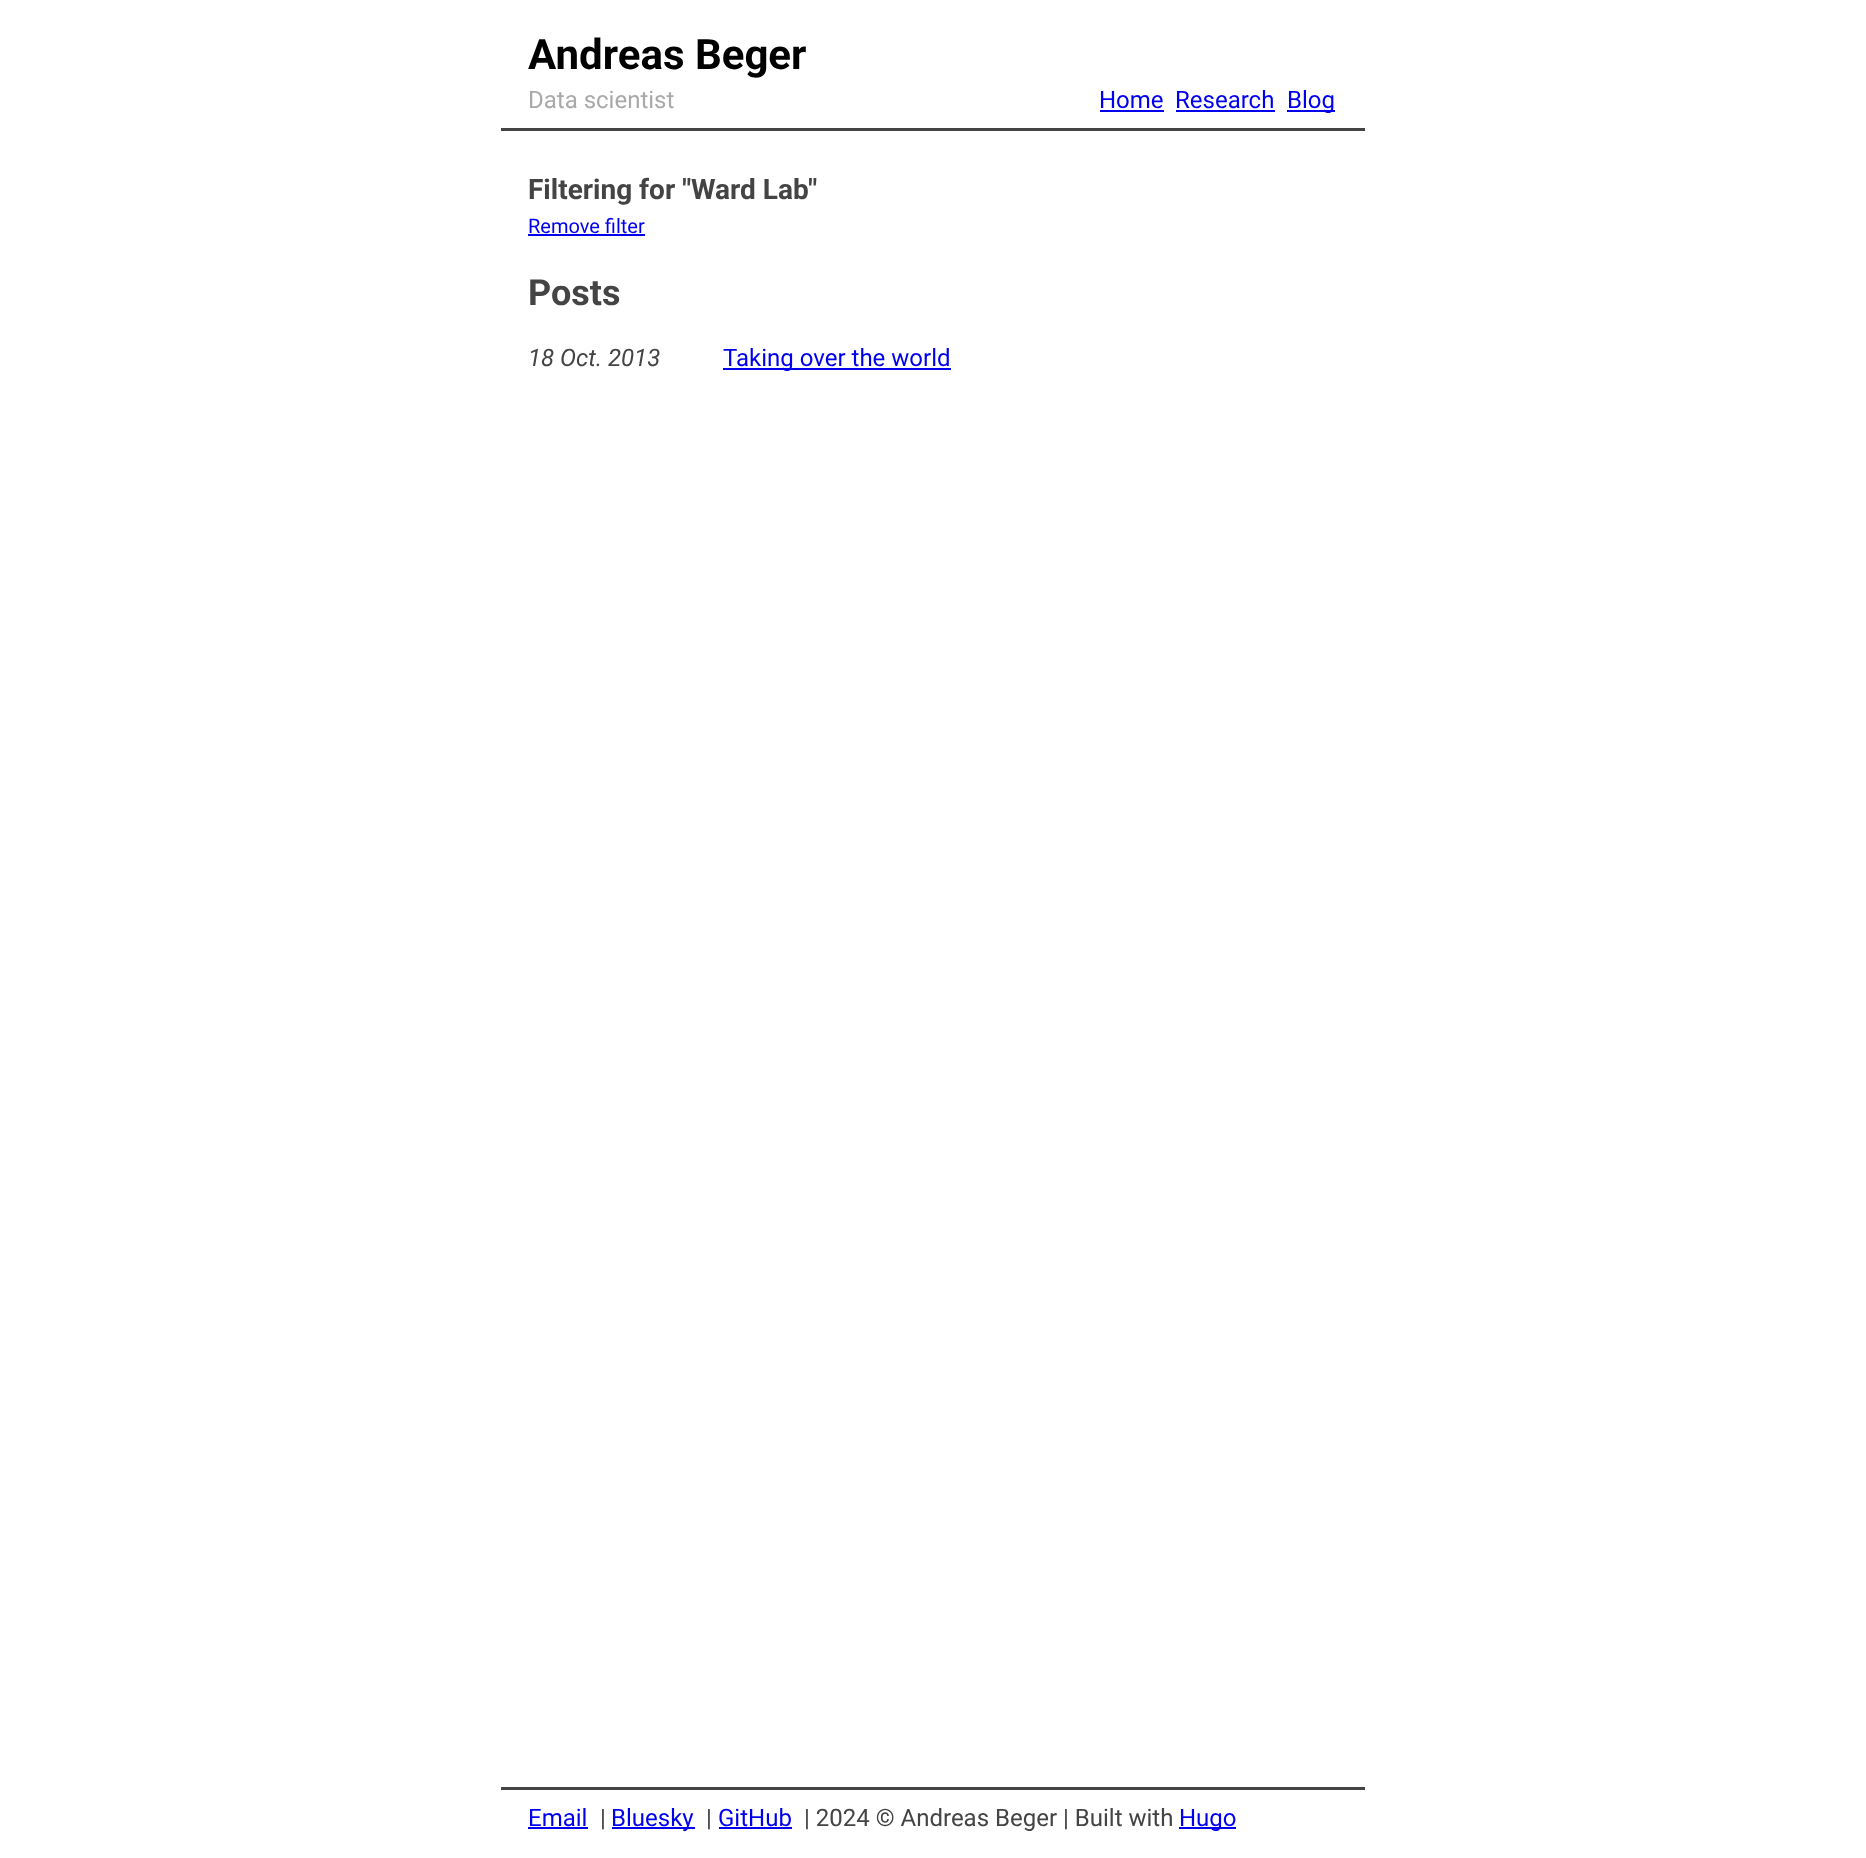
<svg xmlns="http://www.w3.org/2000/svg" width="1866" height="1858">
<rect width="100%" height="100%" fill="#fff"/>
<rect x="501" y="128" width="864" height="3" fill="#444"/>
<text x="528" y="69" style="font-family:Roboto;font-size:42px;font-weight:bold;fill:#000">Andreas Beger</text>
<text x="528" y="108" style="font-family:Roboto;font-size:24px;fill:#a9a9a9">Data scientist</text>
<text x="1099" y="108" style="font-family:Roboto;font-size:24px;fill:#00e">Home</text>
<rect x="1100" y="110" width="64" height="2" fill="#00e"/>
<text x="1175" y="108" style="font-family:Roboto;font-size:24px;fill:#00e">Research</text>
<rect x="1176" y="110" width="99" height="2" fill="#00e"/>
<rect x="1287" y="110" width="48" height="2" fill="#00e"/>
<text x="1287" y="108" style="font-family:Roboto;font-size:24px;fill:#00e">Blog</text>
<text x="528" y="199" style="font-family:Roboto;font-size:28px;font-weight:bold;fill:#444">Filtering for "Ward Lab"</text>
<text x="528" y="233" style="font-family:Roboto;font-size:20px;fill:#00e">Remove filter</text>
<rect x="528" y="234" width="117" height="2" fill="#00e"/>
<text x="528" y="305" style="font-family:Roboto;font-size:36px;font-weight:bold;fill:#444">Posts</text>
<text x="528" y="366" style="font-family:Roboto;font-size:24px;font-style:italic;fill:#444">18 Oct. 2013</text>
<rect x="723" y="368" width="228" height="2" fill="#00e"/>
<text x="723" y="366" style="font-family:Roboto;font-size:24px;fill:#00e">Taking over the world</text>
<rect x="501" y="1787" width="864" height="3" fill="#444"/>
<text x="528" y="1826" style="font-family:Roboto;font-size:24px;fill:#00e">Email</text>
<rect x="528" y="1827" width="60" height="2" fill="#00e"/>
<text x="600" y="1826" style="font-family:Roboto;font-size:24px;fill:#444">|</text>
<rect x="612" y="1827" width="83" height="2" fill="#00e"/>
<text x="611" y="1826" style="font-family:Roboto;font-size:24px;fill:#00e">Bluesky</text>
<text x="706" y="1826" style="font-family:Roboto;font-size:24px;fill:#444">|</text>
<text x="718" y="1826" style="font-family:Roboto;font-size:24px;fill:#00e">GitHub</text>
<rect x="719" y="1827" width="73" height="2" fill="#00e"/>
<text x="804" y="1826" style="font-family:Roboto;font-size:24px;fill:#444">| 2024 © Andreas Beger | Built with</text>
<rect x="1179" y="1827" width="57" height="2" fill="#00e"/>
<text x="1179" y="1826" style="font-family:Roboto;font-size:24px;fill:#00e">Hugo</text>
</svg>
